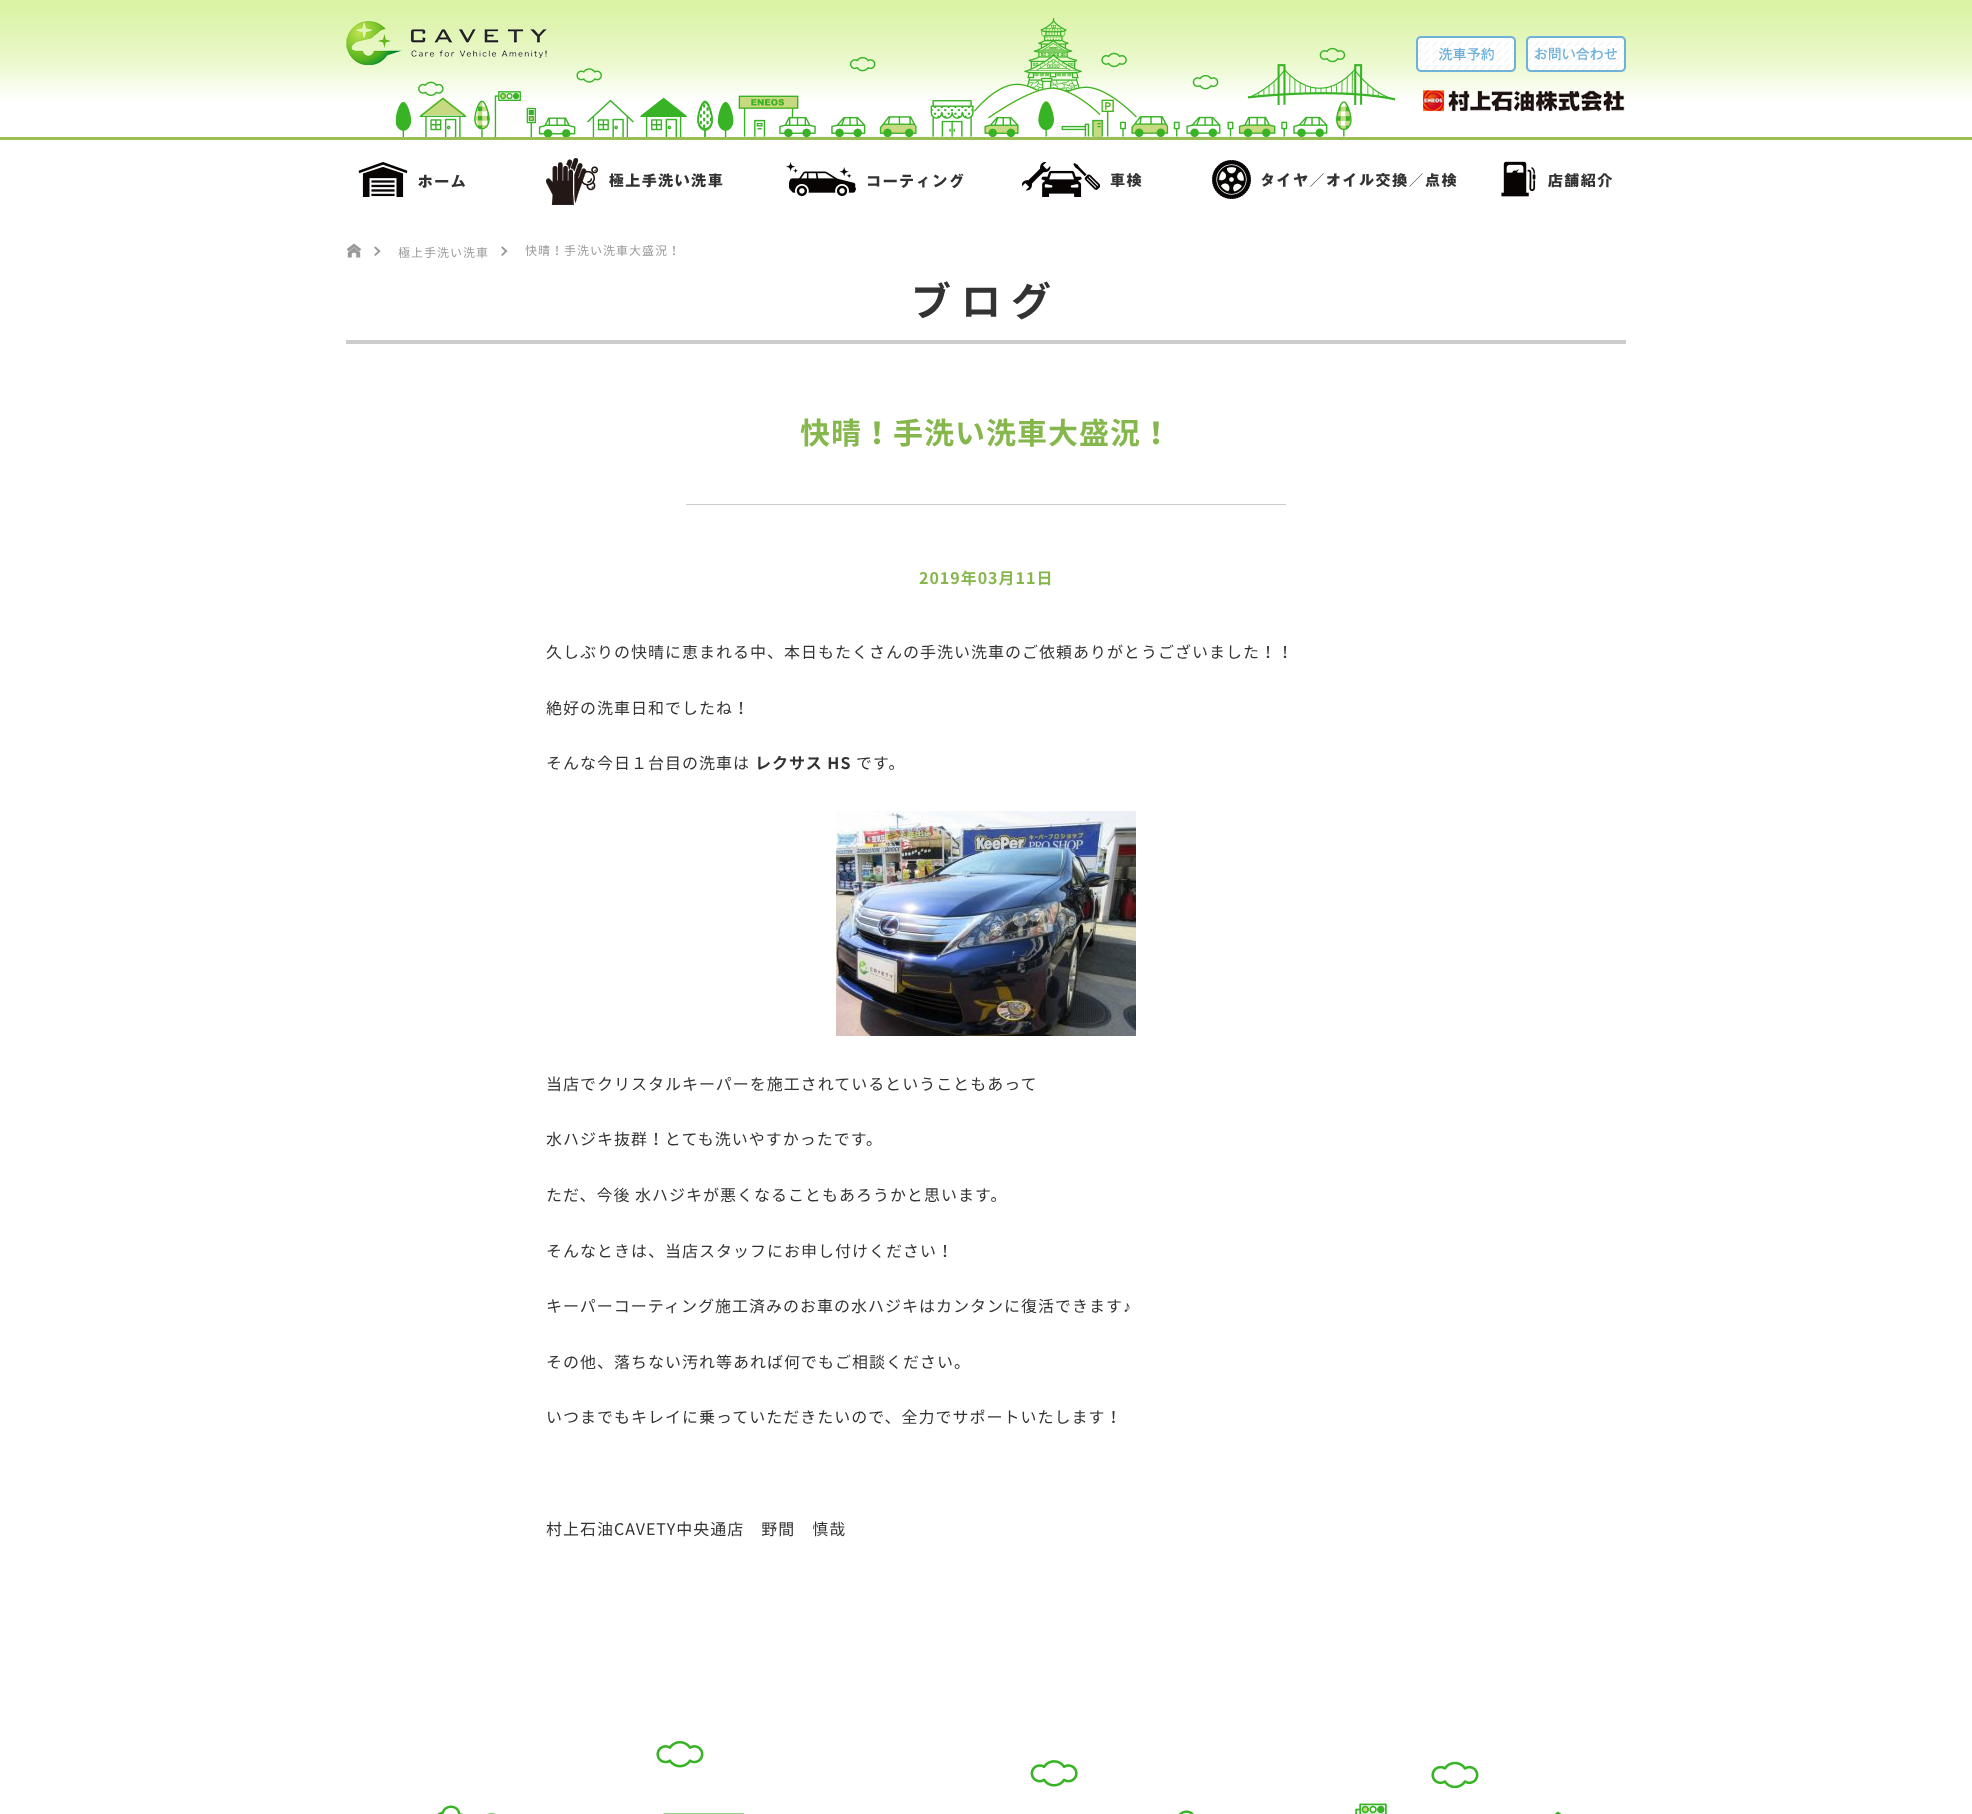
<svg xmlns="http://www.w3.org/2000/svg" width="1972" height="1814">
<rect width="100%" height="100%" fill="#fff"/>
<image x="0" y="0" width="1972" height="140" href="media/1.png"/>
<image x="395" y="18" width="1001" height="119" href="media/2.png"/>
<image x="346" y="20" width="201" height="45" href="media/3.png"/>
<image x="1416" y="36" width="100" height="36" href="media/4.png"/>
<image x="1526" y="36" width="100" height="36" href="media/5.png"/>
<image x="1423" y="90" width="202" height="22" href="media/6.png"/>
<image x="358" y="162" width="107" height="35" href="media/7.png"/>
<image x="546" y="158" width="177" height="47" href="media/8.png"/>
<image x="786" y="162" width="178" height="34" href="media/9.png"/>
<image x="1021" y="162" width="121" height="35" href="media/10.png"/>
<image x="1212" y="160" width="245" height="39" href="media/11.png"/>
<image x="1501" y="161" width="112" height="36" href="media/12.png"/>
<image x="346" y="243" width="16" height="15" href="media/13.png"/>
<path d="M375.5 246.5l5 4.5l-1.5 1.5l-5-5z" fill="#999"/>
<path d="M379 250l1.5 1l-5 5l-1.5-1z" fill="#999"/>
<text x="398" y="257" style="font-family:Noto Sans JP;font-size:12px;letter-spacing:1px;fill:#999">極上手洗い洗車</text>
<path d="M502.5 246.5l5 4.5l-1.5 1.5l-5-5z" fill="#999"/>
<path d="M506 250l1.5 1l-5 5l-1.5-1z" fill="#999"/>
<text x="525" y="255" style="font-family:Noto Sans JP;font-size:12px;letter-spacing:1px;fill:#999">快晴！手洗い洗車大盛況！</text>
<rect x="346" y="340" width="1280" height="4" fill="#ccc"/>
<text x="911" y="316" style="font-family:Noto Sans JP;font-size:40px;font-weight:bold;letter-spacing:10px;fill:#333">ブログ</text>
<rect x="686" y="504" width="600" height="1" fill="#ccc"/>
<text x="800" y="444" style="font-family:Noto Sans JP;font-size:30px;font-weight:bold;letter-spacing:1px;fill:#86b74c">快晴！手洗い洗車大盛況！</text>
<text x="919" y="584" style="font-family:Noto Sans JP;font-size:16px;font-weight:bold;letter-spacing:1px;fill:#86b74c">2019年03月11日</text>
<text x="546" y="658" style="font-family:Noto Sans JP;font-size:16px;letter-spacing:1px;fill:#333">久しぶりの快晴に恵まれる中、本日もたくさんの手洗い洗車のご依頼ありがとうございました！！</text>
<text x="546" y="714" style="font-family:Noto Sans JP;font-size:16px;letter-spacing:1px;fill:#333">絶好の洗車日和でしたね！</text>
<text x="546" y="769" style="font-family:Noto Sans JP;font-size:16px;letter-spacing:1px;fill:#333">そんな今日１台目の洗車は</text>
<text x="755" y="769" style="font-family:Noto Sans JP;font-size:16px;font-weight:bold;letter-spacing:1px;fill:#333">レクサス HS</text>
<text x="856" y="769" style="font-family:Noto Sans JP;font-size:16px;letter-spacing:1px;fill:#333">です。</text>
<image x="836" y="811" width="300" height="225" href="media/14.png"/>
<text x="546" y="1090" style="font-family:Noto Sans JP;font-size:16px;letter-spacing:1px;fill:#333">当店でクリスタルキーパーを施工されているということもあって</text>
<text x="546" y="1145" style="font-family:Noto Sans JP;font-size:16px;letter-spacing:1px;fill:#333">水ハジキ抜群！とても洗いやすかったです。</text>
<text x="546" y="1201" style="font-family:Noto Sans JP;font-size:16px;letter-spacing:1px;fill:#333">ただ、今後 水ハジキが悪くなることもあろうかと思います。</text>
<text x="546" y="1257" style="font-family:Noto Sans JP;font-size:16px;letter-spacing:1px;fill:#333">そんなときは、当店スタッフにお申し付けください！</text>
<text x="546" y="1312" style="font-family:Noto Sans JP;font-size:16px;letter-spacing:1px;fill:#333">キーパーコーティング施工済みのお車の水ハジキはカンタンに復活できます</text>
<text x="1123" y="1312" style="font-family:Liberation Sans;font-size:16px;letter-spacing:1px;fill:#333">♪</text>
<text x="546" y="1368" style="font-family:Noto Sans JP;font-size:16px;letter-spacing:1px;fill:#333">その他、落ちない汚れ等あれば何でもご相談ください。</text>
<text x="546" y="1423" style="font-family:Noto Sans JP;font-size:16px;letter-spacing:1px;fill:#333">いつまでもキレイに乗っていただきたいので、全力でサポートいたします！</text>
<text x="546" y="1535" style="font-family:Noto Sans JP;font-size:16px;letter-spacing:1px;fill:#333">村上石油CAVETY中央通店　野間　慎哉</text>
<image x="437" y="1741" width="1125" height="73" href="media/15.png"/>
</svg>
